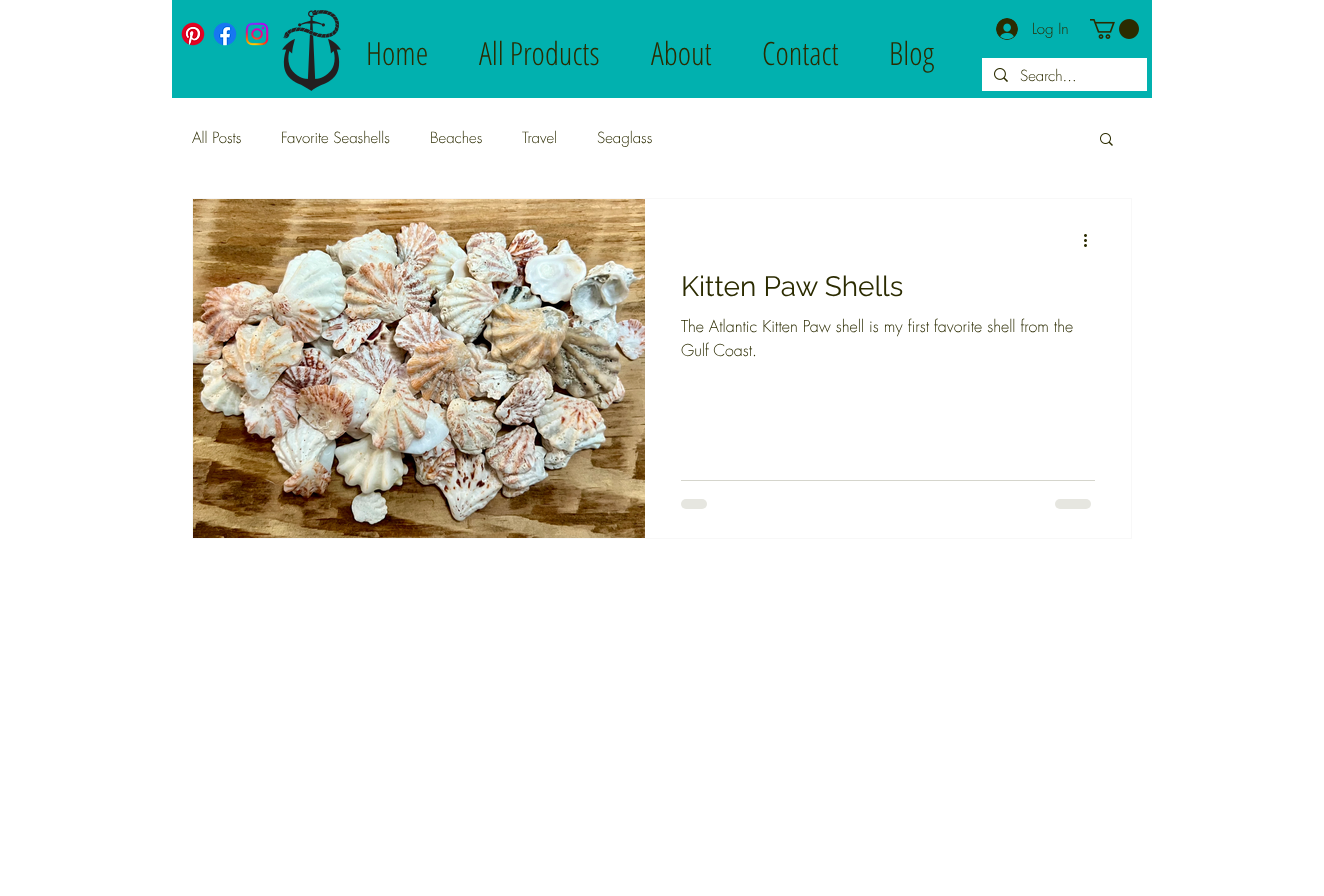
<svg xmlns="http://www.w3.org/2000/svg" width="1324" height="896">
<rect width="100%" height="100%" fill="#fff"/>
<rect x="172" width="980" height="98" fill="#01b1af"/>
<image x="181" y="22" width="24" height="24" href="media/1.png"/>
<image x="213" y="22" width="24" height="24" href="media/2.png"/>
<image x="245" y="22" width="24" height="24" href="media/3.png"/>
<image x="282" y="10" width="59" height="81" href="media/4.png"/>
<image x="996" y="18" width="22" height="22" href="media/5.png"/>
<text x="1032" y="34" style="font-family:futura;font-size:15px;font-weight:300;fill:#2b2b00">Log In</text>
<image x="1090" y="19" width="49" height="20" href="media/6.png"/>
<text x="366" y="65" style="font-family:Open Sans Condensed;font-size:32px;font-weight:300;fill:#2b2b00">Home</text>
<text x="479" y="65" style="font-family:Open Sans Condensed;font-size:32px;font-weight:300;fill:#2b2b00">All Products</text>
<text x="651" y="65" style="font-family:Open Sans Condensed;font-size:32px;font-weight:300;fill:#2b2b00">About</text>
<text x="762" y="65" style="font-family:Open Sans Condensed;font-size:32px;font-weight:300;fill:#2b2b00">Contact</text>
<text x="889" y="65" style="font-family:Open Sans Condensed;font-size:32px;font-weight:300;fill:#2b2b00">Blog</text>
<rect x="982" y="58" width="165" height="33" fill="#fff"/>
<image x="994" y="68" width="14" height="14" href="media/7.png"/>
<text x="1020" y="81" style="font-family:futura;font-size:15px;font-weight:300;fill:#2b2b00">Search...</text>
<text x="192" y="143" style="font-family:futura;font-size:15px;font-weight:300;fill:#2b2b00">All Posts</text>
<text x="281" y="143" style="font-family:futura;font-size:15px;font-weight:300;fill:#2b2b00">Favorite Seashells</text>
<text x="430" y="143" style="font-family:futura;font-size:15px;font-weight:300;fill:#2b2b00">Beaches</text>
<text x="522" y="143" style="font-family:futura;font-size:15px;font-weight:300;fill:#2b2b00">Travel</text>
<text x="597" y="143" style="font-family:futura;font-size:15px;font-weight:300;fill:#2b2b00">Seaglass</text>
<image x="1100" y="133" width="13" height="13" href="media/8.png"/>
<rect x="192.5" y="198.5" width="939" height="340" fill="none" stroke="#f8f8f8"/>
<image x="193" y="199" width="452" height="339" href="media/9.png"/>
<image x="1084" y="234" width="3" height="13" href="media/10.png"/>
<text x="681" y="296" style="font-family:Raleway;font-size:28px;fill:#2b2b00">Kitten Paw Shells</text>
<text x="681" y="332" style="font-family:futura;font-size:16px;font-weight:300;fill:#2b2b00">The Atlantic Kitten Paw shell is my first favorite shell from the</text>
<text x="681" y="356" style="font-family:futura;font-size:16px;font-weight:300;fill:#2b2b00">Gulf Coast.</text>
<rect x="681" y="480" width="414" height="1" fill="#d5d5cc"/>
<rect x="681" y="499" width="26" height="10" rx="5" fill="#e6e6e0"/>
<rect x="1055" y="499" width="36" height="10" rx="5" fill="#e6e6e0"/>
</svg>
